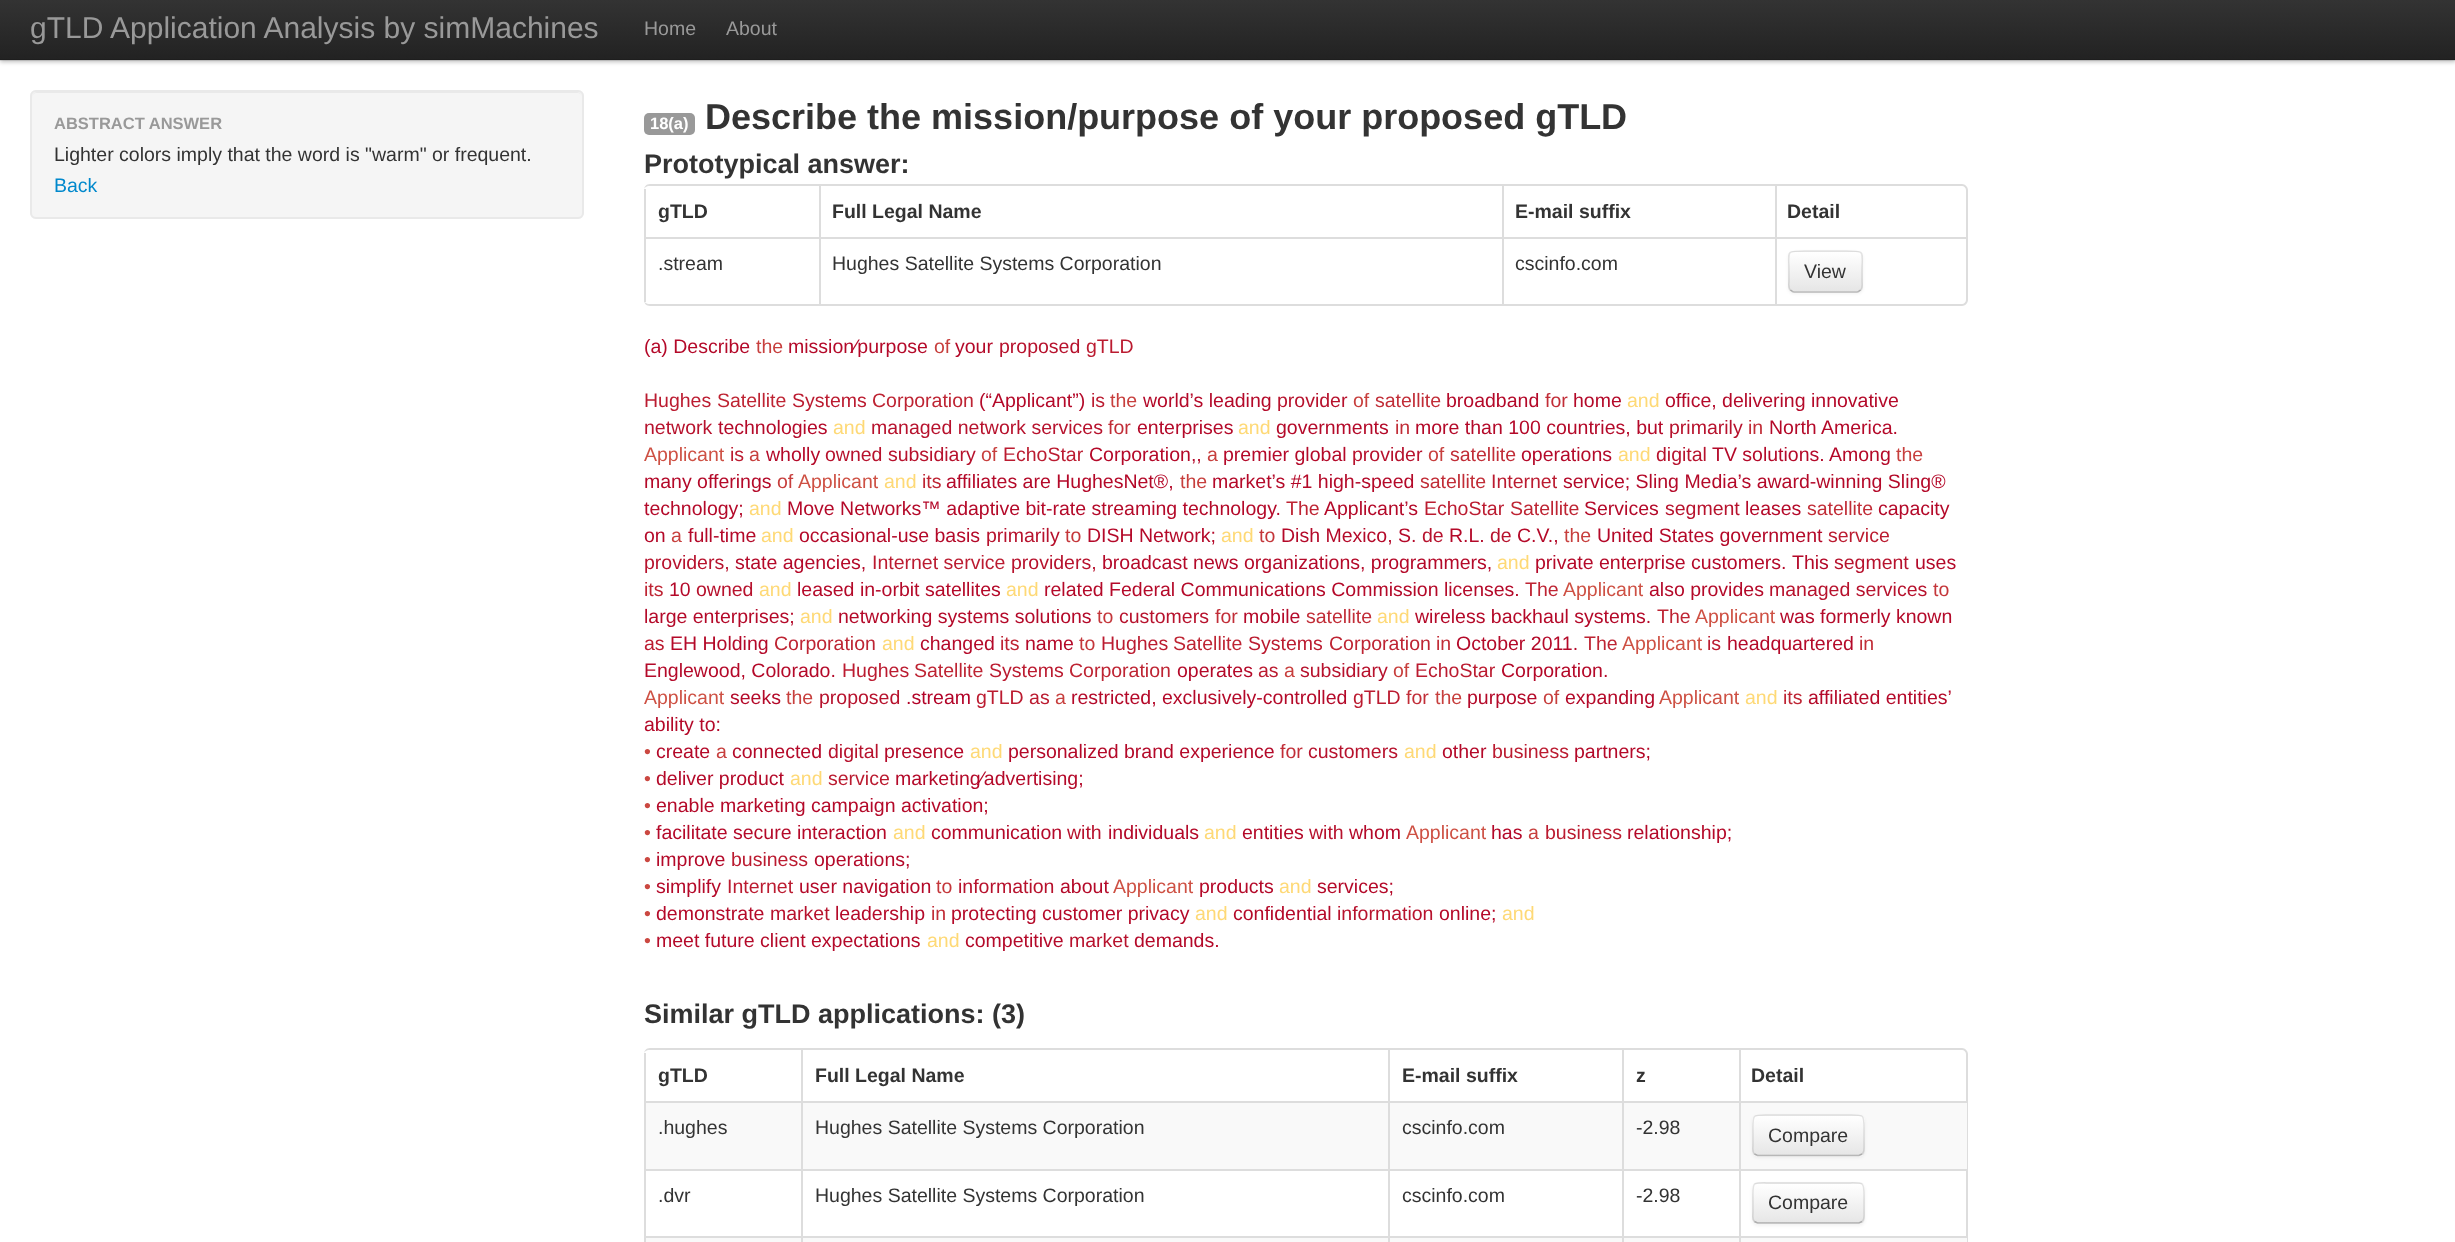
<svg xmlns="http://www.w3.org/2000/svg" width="2455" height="1242">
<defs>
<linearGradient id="g1" gradientUnits="userSpaceOnUse" x1="1228" y1="0" x2="1228" y2="60"><stop offset="0" stop-color="#333"/><stop offset="1" stop-color="#222"/></linearGradient>
<clipPath id="clip1"><rect x="1788" y="251" width="75" height="42" rx="6"/></clipPath>
<linearGradient id="g2" gradientUnits="userSpaceOnUse" x1="1826" y1="252" x2="1826" y2="291"><stop offset="0" stop-color="#fff"/><stop offset="1" stop-color="#e6e6e6"/></linearGradient>
<clipPath id="clip2"><rect x="1752" y="1115" width="113" height="42" rx="6"/></clipPath>
<linearGradient id="g3" gradientUnits="userSpaceOnUse" x1="1808" y1="1116" x2="1808" y2="1155"><stop offset="0" stop-color="#fff"/><stop offset="1" stop-color="#e6e6e6"/></linearGradient>
<clipPath id="clip3"><rect x="1752" y="1182" width="113" height="42" rx="6"/></clipPath>
<linearGradient id="g4" gradientUnits="userSpaceOnUse" x1="1808" y1="1184" x2="1808" y2="1223"><stop offset="0" stop-color="#fff"/><stop offset="1" stop-color="#e6e6e6"/></linearGradient>
</defs>
<rect width="100%" height="100%" fill="#fff"/>
<rect y="2" width="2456" height="60" fill="#00000040" filter="blur(2px)"/>
<rect width="2455" height="60" fill="url(#g1)"/>
<rect y="59" width="2455" height="2" fill="#0000001a"/>
<text x="30" y="38" style="font-family:Liberation Sans;font-size:30px;fill:#999">gTLD Application Analysis by simMachines</text>
<text x="644" y="35" style="font-family:Liberation Sans;font-size:19.5px;fill:#999">Home</text>
<text x="726" y="35" style="font-family:Liberation Sans;font-size:19.5px;fill:#999">About</text>
<rect x="30" y="90" width="554" height="129" rx="6" fill="#f5f5f5"/>
<path d="M36 93h542c2 0 4 2 4 5c0-3-2-6-5-6h-540c-3 0-5 3-5 6c0-3 2-5 4-5z" fill="#e9e9e9"/>
<rect x="31" y="91" width="552" height="127" rx="5" fill="none" stroke="#e9e9e9" stroke-width="2"/>
<text x="54" y="129" style="font-family:Liberation Sans;font-size:16.5px;font-weight:bold;fill:#999">ABSTRACT ANSWER</text>
<text x="54" y="161" style="font-family:Liberation Sans;font-size:19.5px;fill:#333">Lighter colors imply that the word is "warm" or frequent.</text>
<text x="54" y="192" style="font-family:Liberation Sans;font-size:19.5px;fill:#08c">Back</text>
<rect x="644" y="113" width="51" height="22" rx="5" fill="#999"/>
<text x="650" y="129" style="font-family:Liberation Sans;font-size:16.5px;font-weight:bold;fill:#fff">18(a)</text>
<text x="705" y="129" style="font-family:Liberation Sans;font-size:36px;font-weight:bold;fill:#333">Describe the mission/purpose of your proposed gTLD</text>
<text x="644" y="173" style="font-family:Liberation Sans;font-size:27px;font-weight:bold;fill:#333">Prototypical answer:</text>
<path d="M650 184h1312c3 0 6 3 6 6v110c0 3-3 6-6 6h-1312c-4 0-6-3-6-6v-110c0-3 2-6 6-6zm0 2h1312c2 0 4 2 4 4v110c0 2-2 4-4 4h-1312c-4 0-6-2-6-4v-110c0-2 2-4 6-4z" fill="#ddd" fill-rule="evenodd"/>
<rect x="644" y="189" width="2" height="48" fill="#ddd"/>
<text x="658" y="218" style="font-family:Liberation Sans;font-size:19.5px;font-weight:bold;fill:#333">gTLD</text>
<rect x="819" y="186" width="2" height="51" fill="#ddd"/>
<text x="832" y="218" style="font-family:Liberation Sans;font-size:19.5px;font-weight:bold;fill:#333">Full Legal Name</text>
<rect x="1502" y="186" width="2" height="51" fill="#ddd"/>
<text x="1515" y="218" style="font-family:Liberation Sans;font-size:19.5px;font-weight:bold;fill:#333">E-mail suffix</text>
<rect x="1775" y="186" width="2" height="51" fill="#ddd"/>
<text x="1787" y="218" style="font-family:Liberation Sans;font-size:19.5px;font-weight:bold;fill:#333">Detail</text>
<rect x="644" y="237" width="1323" height="2" fill="#ddd"/>
<rect x="644" y="237" width="2" height="65" fill="#ddd"/>
<text x="658" y="270" style="font-family:Liberation Sans;font-size:19.5px;fill:#333">.stream</text>
<rect x="819" y="237" width="2" height="68" fill="#ddd"/>
<text x="832" y="270" style="font-family:Liberation Sans;font-size:19.5px;fill:#333">Hughes Satellite Systems Corporation</text>
<rect x="1502" y="237" width="2" height="68" fill="#ddd"/>
<text x="1515" y="270" style="font-family:Liberation Sans;font-size:19.5px;fill:#333">cscinfo.com</text>
<rect x="1775" y="237" width="2" height="68" fill="#ddd"/>
<rect x="1788" y="252" width="75" height="42" rx="6" fill="#0000000d" filter="blur(1.5px)"/>
<rect x="1788" y="251" width="75" height="42" rx="6" fill="#f5f5f5"/>
<g clip-path="url(#clip1)">
<rect x="1788" y="252" width="75" height="39" fill="url(#g2)"/>
</g>
<path d="M1860.5 290c-1 1-2 2-3.5 2h-63c-1.5 0-2.5-1-3.5-2" fill="none" stroke="#00000040" stroke-width="1.5"/>
<path d="M1790.5 290c-2.5-2-1.5-5.5-1.5-8.5v-10c0-20.5-4-20.5 15.5-20.5h42c19.5 0 15.5 0 15.5 20.5v10c0 3 1 6.5-1.5 8.5" fill="none" stroke="#0000001a" stroke-width="1.5"/>
<text x="1804" y="278" style="font-family:Liberation Sans;font-size:19.5px;fill:#333">View</text>
<text x="644" y="353" style="font-family:Liberation Sans;font-size:19.5px;fill:#b40929">(a) Describe</text>
<text x="756" y="353" style="font-family:Liberation Sans;font-size:19.5px;fill:#c73f3d">the</text>
<text x="788" y="353" style="font-family:Liberation Sans;font-size:19.5px;fill:#b40929">mission⁄purpose</text>
<text x="934" y="353" style="font-family:Liberation Sans;font-size:19.5px;fill:#c73f3d">of</text>
<text x="955" y="353" style="font-family:Liberation Sans;font-size:19.5px;fill:#b40929">your</text>
<text x="999" y="353" style="font-family:Liberation Sans;font-size:19.5px;fill:#b7122d">proposed</text>
<text x="1086" y="353" style="font-family:Liberation Sans;font-size:19.5px;fill:#bb1b30">gTLD</text>
<text x="644" y="407" style="font-family:Liberation Sans;font-size:19.5px;fill:#bb1b30">Hughes</text>
<text x="717" y="407" style="font-family:Liberation Sans;font-size:19.5px;fill:#be2433">Satellite</text>
<text x="792" y="407" style="font-family:Liberation Sans;font-size:19.5px;fill:#bb1b30">Systems</text>
<text x="872" y="407" style="font-family:Liberation Sans;font-size:19.5px;fill:#be2433">Corporation</text>
<text x="979" y="407" style="font-family:Liberation Sans;font-size:19.5px;fill:#b40929">(“Applicant”)</text>
<text x="1091" y="407" style="font-family:Liberation Sans;font-size:19.5px;fill:#bb1b30">is</text>
<text x="1110" y="407" style="font-family:Liberation Sans;font-size:19.5px;fill:#c73f3d">the</text>
<text x="1143" y="407" style="font-family:Liberation Sans;font-size:19.5px;fill:#b40929">world’s leading</text>
<text x="1277" y="407" style="font-family:Liberation Sans;font-size:19.5px;fill:#b7122d">provider</text>
<text x="1353" y="407" style="font-family:Liberation Sans;font-size:19.5px;fill:#c73f3d">of</text>
<text x="1375" y="407" style="font-family:Liberation Sans;font-size:19.5px;fill:#c12d37">satellite</text>
<text x="1446" y="407" style="font-family:Liberation Sans;font-size:19.5px;fill:#b40929">broadband</text>
<text x="1545" y="407" style="font-family:Liberation Sans;font-size:19.5px;fill:#c12d37">for</text>
<text x="1573" y="407" style="font-family:Liberation Sans;font-size:19.5px;fill:#b40929">home</text>
<text x="1627" y="407" style="font-family:Liberation Sans;font-size:19.5px;fill:#fed976">and</text>
<text x="1665" y="407" style="font-family:Liberation Sans;font-size:19.5px;fill:#b40929">office, delivering innovative</text>
<text x="644" y="434" style="font-family:Liberation Sans;font-size:19.5px;fill:#b7122d">network</text>
<text x="718" y="434" style="font-family:Liberation Sans;font-size:19.5px;fill:#b40929">technologies</text>
<text x="833" y="434" style="font-family:Liberation Sans;font-size:19.5px;fill:#fed976">and</text>
<text x="871" y="434" style="font-family:Liberation Sans;font-size:19.5px;fill:#b7122d">managed network services</text>
<text x="1108" y="434" style="font-family:Liberation Sans;font-size:19.5px;fill:#c12d37">for</text>
<text x="1137" y="434" style="font-family:Liberation Sans;font-size:19.5px;fill:#b40929">enterprises</text>
<text x="1238" y="434" style="font-family:Liberation Sans;font-size:19.5px;fill:#fed976">and</text>
<text x="1276" y="434" style="font-family:Liberation Sans;font-size:19.5px;fill:#b40929">governments</text>
<text x="1395" y="434" style="font-family:Liberation Sans;font-size:19.5px;fill:#c12d37">in</text>
<text x="1415" y="434" style="font-family:Liberation Sans;font-size:19.5px;fill:#b40929">more than 100 countries, but</text>
<text x="1669" y="434" style="font-family:Liberation Sans;font-size:19.5px;fill:#b7122d">primarily</text>
<text x="1748" y="434" style="font-family:Liberation Sans;font-size:19.5px;fill:#c12d37">in</text>
<text x="1769" y="434" style="font-family:Liberation Sans;font-size:19.5px;fill:#b40929">North</text>
<text x="1821" y="434" style="font-family:Liberation Sans;font-size:19.5px;fill:#b40929">America.</text>
<text x="644" y="461" style="font-family:Liberation Sans;font-size:19.5px;fill:#ce5144">Applicant</text>
<text x="730" y="461" style="font-family:Liberation Sans;font-size:19.5px;fill:#bb1b30">is</text>
<text x="749" y="461" style="font-family:Liberation Sans;font-size:19.5px;fill:#c73f3d">a</text>
<text x="766" y="461" style="font-family:Liberation Sans;font-size:19.5px;fill:#b40929">wholly</text>
<text x="825" y="461" style="font-family:Liberation Sans;font-size:19.5px;fill:#b7122d">owned subsidiary</text>
<text x="981" y="461" style="font-family:Liberation Sans;font-size:19.5px;fill:#c73f3d">of</text>
<text x="1003" y="461" style="font-family:Liberation Sans;font-size:19.5px;fill:#bb1b30">EchoStar</text>
<text x="1089" y="461" style="font-family:Liberation Sans;font-size:19.5px;fill:#b40929">Corporation,,</text>
<text x="1207" y="461" style="font-family:Liberation Sans;font-size:19.5px;fill:#c73f3d">a</text>
<text x="1223" y="461" style="font-family:Liberation Sans;font-size:19.5px;fill:#b40929">premier global</text>
<text x="1352" y="461" style="font-family:Liberation Sans;font-size:19.5px;fill:#b7122d">provider</text>
<text x="1428" y="461" style="font-family:Liberation Sans;font-size:19.5px;fill:#c73f3d">of</text>
<text x="1450" y="461" style="font-family:Liberation Sans;font-size:19.5px;fill:#c12d37">satellite</text>
<text x="1521" y="461" style="font-family:Liberation Sans;font-size:19.5px;fill:#b40929">operations</text>
<text x="1618" y="461" style="font-family:Liberation Sans;font-size:19.5px;fill:#fed976">and</text>
<text x="1656" y="461" style="font-family:Liberation Sans;font-size:19.5px;fill:#b7122d">digital</text>
<text x="1712" y="461" style="font-family:Liberation Sans;font-size:19.5px;fill:#b40929">TV solutions.</text>
<text x="1829" y="461" style="font-family:Liberation Sans;font-size:19.5px;fill:#b40929">Among</text>
<text x="1896" y="461" style="font-family:Liberation Sans;font-size:19.5px;fill:#c73f3d">the</text>
<text x="644" y="488" style="font-family:Liberation Sans;font-size:19.5px;fill:#b40929">many offerings</text>
<text x="777" y="488" style="font-family:Liberation Sans;font-size:19.5px;fill:#c73f3d">of</text>
<text x="798" y="488" style="font-family:Liberation Sans;font-size:19.5px;fill:#ce5144">Applicant</text>
<text x="884" y="488" style="font-family:Liberation Sans;font-size:19.5px;fill:#fed976">and</text>
<text x="922" y="488" style="font-family:Liberation Sans;font-size:19.5px;fill:#be2433">its</text>
<text x="946" y="488" style="font-family:Liberation Sans;font-size:19.5px;fill:#b40929">affiliates are HughesNet®,</text>
<text x="1180" y="488" style="font-family:Liberation Sans;font-size:19.5px;fill:#c73f3d">the</text>
<text x="1212" y="488" style="font-family:Liberation Sans;font-size:19.5px;fill:#b40929">market’s #1 high-speed</text>
<text x="1420" y="488" style="font-family:Liberation Sans;font-size:19.5px;fill:#c12d37">satellite</text>
<text x="1491" y="488" style="font-family:Liberation Sans;font-size:19.5px;fill:#bb1b30">Internet</text>
<text x="1563" y="488" style="font-family:Liberation Sans;font-size:19.5px;fill:#b40929">service; Sling Media’s award-winning Sling®</text>
<text x="644" y="515" style="font-family:Liberation Sans;font-size:19.5px;fill:#b40929">technology;</text>
<text x="749" y="515" style="font-family:Liberation Sans;font-size:19.5px;fill:#fed976">and</text>
<text x="787" y="515" style="font-family:Liberation Sans;font-size:19.5px;fill:#b40929">Move Networks™ adaptive bit-rate streaming technology.</text>
<text x="1286" y="515" style="font-family:Liberation Sans;font-size:19.5px;fill:#be2433">The</text>
<text x="1324" y="515" style="font-family:Liberation Sans;font-size:19.5px;fill:#b40929">Applicant’s</text>
<text x="1424" y="515" style="font-family:Liberation Sans;font-size:19.5px;fill:#bb1b30">EchoStar</text>
<text x="1510" y="515" style="font-family:Liberation Sans;font-size:19.5px;fill:#be2433">Satellite</text>
<text x="1584" y="515" style="font-family:Liberation Sans;font-size:19.5px;fill:#b40929">Services</text>
<text x="1665" y="515" style="font-family:Liberation Sans;font-size:19.5px;fill:#b7122d">segment</text>
<text x="1745" y="515" style="font-family:Liberation Sans;font-size:19.5px;fill:#b40929">leases</text>
<text x="1807" y="515" style="font-family:Liberation Sans;font-size:19.5px;fill:#c12d37">satellite</text>
<text x="1878" y="515" style="font-family:Liberation Sans;font-size:19.5px;fill:#b40929">capacity</text>
<text x="644" y="542" style="font-family:Liberation Sans;font-size:19.5px;fill:#b40929">on</text>
<text x="671" y="542" style="font-family:Liberation Sans;font-size:19.5px;fill:#c73f3d">a</text>
<text x="688" y="542" style="font-family:Liberation Sans;font-size:19.5px;fill:#b40929">full-time</text>
<text x="761" y="542" style="font-family:Liberation Sans;font-size:19.5px;fill:#fed976">and</text>
<text x="799" y="542" style="font-family:Liberation Sans;font-size:19.5px;fill:#b40929">occasional-use basis</text>
<text x="986" y="542" style="font-family:Liberation Sans;font-size:19.5px;fill:#b7122d">primarily</text>
<text x="1065" y="542" style="font-family:Liberation Sans;font-size:19.5px;fill:#c4363a">to</text>
<text x="1087" y="542" style="font-family:Liberation Sans;font-size:19.5px;fill:#b40929">DISH Network;</text>
<text x="1221" y="542" style="font-family:Liberation Sans;font-size:19.5px;fill:#fed976">and</text>
<text x="1259" y="542" style="font-family:Liberation Sans;font-size:19.5px;fill:#c4363a">to</text>
<text x="1281" y="542" style="font-family:Liberation Sans;font-size:19.5px;fill:#b40929">Dish Mexico, S.</text>
<text x="1422" y="542" style="font-family:Liberation Sans;font-size:19.5px;fill:#b7122d">de</text>
<text x="1449" y="542" style="font-family:Liberation Sans;font-size:19.5px;fill:#b40929">R.L.</text>
<text x="1490" y="542" style="font-family:Liberation Sans;font-size:19.5px;fill:#b7122d">de</text>
<text x="1517" y="542" style="font-family:Liberation Sans;font-size:19.5px;fill:#b40929">C.V.,</text>
<text x="1564" y="542" style="font-family:Liberation Sans;font-size:19.5px;fill:#c73f3d">the</text>
<text x="1597" y="542" style="font-family:Liberation Sans;font-size:19.5px;fill:#b40929">United States government</text>
<text x="1828" y="542" style="font-family:Liberation Sans;font-size:19.5px;fill:#bb1b30">service</text>
<text x="644" y="569" style="font-family:Liberation Sans;font-size:19.5px;fill:#b7122d">providers,</text>
<text x="735" y="569" style="font-family:Liberation Sans;font-size:19.5px;fill:#b40929">state agencies,</text>
<text x="872" y="569" style="font-family:Liberation Sans;font-size:19.5px;fill:#bb1b30">Internet service</text>
<text x="1011" y="569" style="font-family:Liberation Sans;font-size:19.5px;fill:#b7122d">providers,</text>
<text x="1102" y="569" style="font-family:Liberation Sans;font-size:19.5px;fill:#b40929">broadcast news organizations, programmers,</text>
<text x="1497" y="569" style="font-family:Liberation Sans;font-size:19.5px;fill:#fed976">and</text>
<text x="1535" y="569" style="font-family:Liberation Sans;font-size:19.5px;fill:#b40929">private enterprise customers.</text>
<text x="1792" y="569" style="font-family:Liberation Sans;font-size:19.5px;fill:#b40929">This</text>
<text x="1834" y="569" style="font-family:Liberation Sans;font-size:19.5px;fill:#b7122d">segment</text>
<text x="1915" y="569" style="font-family:Liberation Sans;font-size:19.5px;fill:#b40929">uses</text>
<text x="644" y="596" style="font-family:Liberation Sans;font-size:19.5px;fill:#be2433">its</text>
<text x="669" y="596" style="font-family:Liberation Sans;font-size:19.5px;fill:#b40929">10</text>
<text x="696" y="596" style="font-family:Liberation Sans;font-size:19.5px;fill:#b7122d">owned</text>
<text x="759" y="596" style="font-family:Liberation Sans;font-size:19.5px;fill:#fed976">and</text>
<text x="797" y="596" style="font-family:Liberation Sans;font-size:19.5px;fill:#b40929">leased in-orbit satellites</text>
<text x="1006" y="596" style="font-family:Liberation Sans;font-size:19.5px;fill:#fed976">and</text>
<text x="1044" y="596" style="font-family:Liberation Sans;font-size:19.5px;fill:#b40929">related Federal Communications Commission licenses.</text>
<text x="1525" y="596" style="font-family:Liberation Sans;font-size:19.5px;fill:#be2433">The</text>
<text x="1563" y="596" style="font-family:Liberation Sans;font-size:19.5px;fill:#ce5144">Applicant</text>
<text x="1649" y="596" style="font-family:Liberation Sans;font-size:19.5px;fill:#b40929">also provides</text>
<text x="1769" y="596" style="font-family:Liberation Sans;font-size:19.5px;fill:#b7122d">managed services</text>
<text x="1933" y="596" style="font-family:Liberation Sans;font-size:19.5px;fill:#c4363a">to</text>
<text x="644" y="623" style="font-family:Liberation Sans;font-size:19.5px;fill:#b40929">large enterprises;</text>
<text x="800" y="623" style="font-family:Liberation Sans;font-size:19.5px;fill:#fed976">and</text>
<text x="838" y="623" style="font-family:Liberation Sans;font-size:19.5px;fill:#b40929">networking systems solutions</text>
<text x="1097" y="623" style="font-family:Liberation Sans;font-size:19.5px;fill:#c4363a">to</text>
<text x="1119" y="623" style="font-family:Liberation Sans;font-size:19.5px;fill:#b7122d">customers</text>
<text x="1215" y="623" style="font-family:Liberation Sans;font-size:19.5px;fill:#c12d37">for</text>
<text x="1243" y="623" style="font-family:Liberation Sans;font-size:19.5px;fill:#b40929">mobile</text>
<text x="1306" y="623" style="font-family:Liberation Sans;font-size:19.5px;fill:#c12d37">satellite</text>
<text x="1377" y="623" style="font-family:Liberation Sans;font-size:19.5px;fill:#fed976">and</text>
<text x="1415" y="623" style="font-family:Liberation Sans;font-size:19.5px;fill:#b40929">wireless backhaul systems.</text>
<text x="1657" y="623" style="font-family:Liberation Sans;font-size:19.5px;fill:#be2433">The</text>
<text x="1695" y="623" style="font-family:Liberation Sans;font-size:19.5px;fill:#ce5144">Applicant</text>
<text x="1780" y="623" style="font-family:Liberation Sans;font-size:19.5px;fill:#b40929">was formerly known</text>
<text x="644" y="650" style="font-family:Liberation Sans;font-size:19.5px;fill:#bb1b30">as</text>
<text x="670" y="650" style="font-family:Liberation Sans;font-size:19.5px;fill:#b40929">EH Holding</text>
<text x="774" y="650" style="font-family:Liberation Sans;font-size:19.5px;fill:#be2433">Corporation</text>
<text x="882" y="650" style="font-family:Liberation Sans;font-size:19.5px;fill:#fed976">and</text>
<text x="920" y="650" style="font-family:Liberation Sans;font-size:19.5px;fill:#b40929">changed</text>
<text x="1000" y="650" style="font-family:Liberation Sans;font-size:19.5px;fill:#be2433">its</text>
<text x="1025" y="650" style="font-family:Liberation Sans;font-size:19.5px;fill:#b40929">name</text>
<text x="1079" y="650" style="font-family:Liberation Sans;font-size:19.5px;fill:#c4363a">to</text>
<text x="1101" y="650" style="font-family:Liberation Sans;font-size:19.5px;fill:#bb1b30">Hughes</text>
<text x="1173" y="650" style="font-family:Liberation Sans;font-size:19.5px;fill:#be2433">Satellite</text>
<text x="1248" y="650" style="font-family:Liberation Sans;font-size:19.5px;fill:#bb1b30">Systems</text>
<text x="1329" y="650" style="font-family:Liberation Sans;font-size:19.5px;fill:#be2433">Corporation</text>
<text x="1436" y="650" style="font-family:Liberation Sans;font-size:19.5px;fill:#c12d37">in</text>
<text x="1456" y="650" style="font-family:Liberation Sans;font-size:19.5px;fill:#b40929">October 2011.</text>
<text x="1584" y="650" style="font-family:Liberation Sans;font-size:19.5px;fill:#be2433">The</text>
<text x="1622" y="650" style="font-family:Liberation Sans;font-size:19.5px;fill:#ce5144">Applicant</text>
<text x="1707" y="650" style="font-family:Liberation Sans;font-size:19.5px;fill:#bb1b30">is</text>
<text x="1727" y="650" style="font-family:Liberation Sans;font-size:19.5px;fill:#b40929">headquartered</text>
<text x="1859" y="650" style="font-family:Liberation Sans;font-size:19.5px;fill:#c12d37">in</text>
<text x="644" y="677" style="font-family:Liberation Sans;font-size:19.5px;fill:#b40929">Englewood, Colorado.</text>
<text x="842" y="677" style="font-family:Liberation Sans;font-size:19.5px;fill:#bb1b30">Hughes</text>
<text x="914" y="677" style="font-family:Liberation Sans;font-size:19.5px;fill:#be2433">Satellite</text>
<text x="989" y="677" style="font-family:Liberation Sans;font-size:19.5px;fill:#bb1b30">Systems</text>
<text x="1069" y="677" style="font-family:Liberation Sans;font-size:19.5px;fill:#be2433">Corporation</text>
<text x="1177" y="677" style="font-family:Liberation Sans;font-size:19.5px;fill:#b40929">operates</text>
<text x="1258" y="677" style="font-family:Liberation Sans;font-size:19.5px;fill:#bb1b30">as</text>
<text x="1284" y="677" style="font-family:Liberation Sans;font-size:19.5px;fill:#c73f3d">a</text>
<text x="1300" y="677" style="font-family:Liberation Sans;font-size:19.5px;fill:#b7122d">subsidiary</text>
<text x="1393" y="677" style="font-family:Liberation Sans;font-size:19.5px;fill:#c73f3d">of</text>
<text x="1415" y="677" style="font-family:Liberation Sans;font-size:19.5px;fill:#bb1b30">EchoStar</text>
<text x="1501" y="677" style="font-family:Liberation Sans;font-size:19.5px;fill:#b40929">Corporation.</text>
<text x="644" y="704" style="font-family:Liberation Sans;font-size:19.5px;fill:#ce5144">Applicant</text>
<text x="730" y="704" style="font-family:Liberation Sans;font-size:19.5px;fill:#b40929">seeks</text>
<text x="786" y="704" style="font-family:Liberation Sans;font-size:19.5px;fill:#c73f3d">the</text>
<text x="819" y="704" style="font-family:Liberation Sans;font-size:19.5px;fill:#b7122d">proposed</text>
<text x="906" y="704" style="font-family:Liberation Sans;font-size:19.5px;fill:#b20227">.stream</text>
<text x="976" y="704" style="font-family:Liberation Sans;font-size:19.5px;fill:#bb1b30">gTLD as</text>
<text x="1055" y="704" style="font-family:Liberation Sans;font-size:19.5px;fill:#c73f3d">a</text>
<text x="1071" y="704" style="font-family:Liberation Sans;font-size:19.5px;fill:#b40929">restricted, exclusively-controlled</text>
<text x="1353" y="704" style="font-family:Liberation Sans;font-size:19.5px;fill:#bb1b30">gTLD</text>
<text x="1406" y="704" style="font-family:Liberation Sans;font-size:19.5px;fill:#c12d37">for</text>
<text x="1435" y="704" style="font-family:Liberation Sans;font-size:19.5px;fill:#c73f3d">the</text>
<text x="1467" y="704" style="font-family:Liberation Sans;font-size:19.5px;fill:#b40929">purpose</text>
<text x="1543" y="704" style="font-family:Liberation Sans;font-size:19.5px;fill:#c73f3d">of</text>
<text x="1565" y="704" style="font-family:Liberation Sans;font-size:19.5px;fill:#b40929">expanding</text>
<text x="1659" y="704" style="font-family:Liberation Sans;font-size:19.5px;fill:#ce5144">Applicant</text>
<text x="1745" y="704" style="font-family:Liberation Sans;font-size:19.5px;fill:#fed976">and</text>
<text x="1783" y="704" style="font-family:Liberation Sans;font-size:19.5px;fill:#be2433">its</text>
<text x="1808" y="704" style="font-family:Liberation Sans;font-size:19.5px;fill:#b40929">affiliated entities’</text>
<text x="644" y="731" style="font-family:Liberation Sans;font-size:19.5px;fill:#b40929">ability to:</text>
<text x="644" y="758" style="font-family:Liberation Sans;font-size:19.5px;fill:#cb4841">•</text>
<text x="656" y="758" style="font-family:Liberation Sans;font-size:19.5px;fill:#b40929">create</text>
<text x="716" y="758" style="font-family:Liberation Sans;font-size:19.5px;fill:#c73f3d">a</text>
<text x="732" y="758" style="font-family:Liberation Sans;font-size:19.5px;fill:#b40929">connected</text>
<text x="828" y="758" style="font-family:Liberation Sans;font-size:19.5px;fill:#b7122d">digital</text>
<text x="884" y="758" style="font-family:Liberation Sans;font-size:19.5px;fill:#b40929">presence</text>
<text x="970" y="758" style="font-family:Liberation Sans;font-size:19.5px;fill:#fed976">and</text>
<text x="1008" y="758" style="font-family:Liberation Sans;font-size:19.5px;fill:#b40929">personalized brand experience</text>
<text x="1280" y="758" style="font-family:Liberation Sans;font-size:19.5px;fill:#c12d37">for</text>
<text x="1308" y="758" style="font-family:Liberation Sans;font-size:19.5px;fill:#b7122d">customers</text>
<text x="1404" y="758" style="font-family:Liberation Sans;font-size:19.5px;fill:#fed976">and</text>
<text x="1442" y="758" style="font-family:Liberation Sans;font-size:19.5px;fill:#b40929">other</text>
<text x="1492" y="758" style="font-family:Liberation Sans;font-size:19.5px;fill:#bb1b30">business</text>
<text x="1574" y="758" style="font-family:Liberation Sans;font-size:19.5px;fill:#b40929">partners;</text>
<text x="644" y="785" style="font-family:Liberation Sans;font-size:19.5px;fill:#cb4841">•</text>
<text x="656" y="785" style="font-family:Liberation Sans;font-size:19.5px;fill:#b40929">deliver product</text>
<text x="790" y="785" style="font-family:Liberation Sans;font-size:19.5px;fill:#fed976">and</text>
<text x="828" y="785" style="font-family:Liberation Sans;font-size:19.5px;fill:#bb1b30">service</text>
<text x="895" y="785" style="font-family:Liberation Sans;font-size:19.5px;fill:#b40929">marketing⁄advertising;</text>
<text x="644" y="812" style="font-family:Liberation Sans;font-size:19.5px;fill:#cb4841">•</text>
<text x="656" y="812" style="font-family:Liberation Sans;font-size:19.5px;fill:#b40929">enable marketing campaign activation;</text>
<text x="644" y="839" style="font-family:Liberation Sans;font-size:19.5px;fill:#cb4841">•</text>
<text x="656" y="839" style="font-family:Liberation Sans;font-size:19.5px;fill:#b40929">facilitate secure interaction</text>
<text x="893" y="839" style="font-family:Liberation Sans;font-size:19.5px;fill:#fed976">and</text>
<text x="931" y="839" style="font-family:Liberation Sans;font-size:19.5px;fill:#b40929">communication</text>
<text x="1067" y="839" style="font-family:Liberation Sans;font-size:19.5px;fill:#b7122d">with</text>
<text x="1108" y="839" style="font-family:Liberation Sans;font-size:19.5px;fill:#b40929">individuals</text>
<text x="1204" y="839" style="font-family:Liberation Sans;font-size:19.5px;fill:#fed976">and</text>
<text x="1242" y="839" style="font-family:Liberation Sans;font-size:19.5px;fill:#b40929">entities</text>
<text x="1309" y="839" style="font-family:Liberation Sans;font-size:19.5px;fill:#b7122d">with</text>
<text x="1349" y="839" style="font-family:Liberation Sans;font-size:19.5px;fill:#b40929">whom</text>
<text x="1406" y="839" style="font-family:Liberation Sans;font-size:19.5px;fill:#ce5144">Applicant</text>
<text x="1491" y="839" style="font-family:Liberation Sans;font-size:19.5px;fill:#b40929">has</text>
<text x="1528" y="839" style="font-family:Liberation Sans;font-size:19.5px;fill:#c73f3d">a</text>
<text x="1545" y="839" style="font-family:Liberation Sans;font-size:19.5px;fill:#bb1b30">business</text>
<text x="1627" y="839" style="font-family:Liberation Sans;font-size:19.5px;fill:#b40929">relationship;</text>
<text x="644" y="866" style="font-family:Liberation Sans;font-size:19.5px;fill:#cb4841">•</text>
<text x="656" y="866" style="font-family:Liberation Sans;font-size:19.5px;fill:#b40929">improve</text>
<text x="731" y="866" style="font-family:Liberation Sans;font-size:19.5px;fill:#bb1b30">business</text>
<text x="814" y="866" style="font-family:Liberation Sans;font-size:19.5px;fill:#b40929">operations;</text>
<text x="644" y="893" style="font-family:Liberation Sans;font-size:19.5px;fill:#cb4841">•</text>
<text x="656" y="893" style="font-family:Liberation Sans;font-size:19.5px;fill:#b40929">simplify</text>
<text x="727" y="893" style="font-family:Liberation Sans;font-size:19.5px;fill:#bb1b30">Internet</text>
<text x="799" y="893" style="font-family:Liberation Sans;font-size:19.5px;fill:#b40929">user navigation</text>
<text x="936" y="893" style="font-family:Liberation Sans;font-size:19.5px;fill:#c4363a">to</text>
<text x="958" y="893" style="font-family:Liberation Sans;font-size:19.5px;fill:#b7122d">information</text>
<text x="1060" y="893" style="font-family:Liberation Sans;font-size:19.5px;fill:#b40929">about</text>
<text x="1113" y="893" style="font-family:Liberation Sans;font-size:19.5px;fill:#ce5144">Applicant</text>
<text x="1199" y="893" style="font-family:Liberation Sans;font-size:19.5px;fill:#b40929">products</text>
<text x="1279" y="893" style="font-family:Liberation Sans;font-size:19.5px;fill:#fed976">and</text>
<text x="1317" y="893" style="font-family:Liberation Sans;font-size:19.5px;fill:#b40929">services;</text>
<text x="644" y="920" style="font-family:Liberation Sans;font-size:19.5px;fill:#cb4841">•</text>
<text x="656" y="920" style="font-family:Liberation Sans;font-size:19.5px;fill:#b40929">demonstrate</text>
<text x="770" y="920" style="font-family:Liberation Sans;font-size:19.5px;fill:#b7122d">market</text>
<text x="835" y="920" style="font-family:Liberation Sans;font-size:19.5px;fill:#b40929">leadership</text>
<text x="931" y="920" style="font-family:Liberation Sans;font-size:19.5px;fill:#c12d37">in</text>
<text x="951" y="920" style="font-family:Liberation Sans;font-size:19.5px;fill:#b40929">protecting customer privacy</text>
<text x="1195" y="920" style="font-family:Liberation Sans;font-size:19.5px;fill:#fed976">and</text>
<text x="1233" y="920" style="font-family:Liberation Sans;font-size:19.5px;fill:#b40929">confidential</text>
<text x="1337" y="920" style="font-family:Liberation Sans;font-size:19.5px;fill:#b7122d">information</text>
<text x="1439" y="920" style="font-family:Liberation Sans;font-size:19.5px;fill:#b40929">online;</text>
<text x="1502" y="920" style="font-family:Liberation Sans;font-size:19.5px;fill:#fed976">and</text>
<text x="644" y="947" style="font-family:Liberation Sans;font-size:19.5px;fill:#cb4841">•</text>
<text x="656" y="947" style="font-family:Liberation Sans;font-size:19.5px;fill:#b40929">meet future client expectations</text>
<text x="927" y="947" style="font-family:Liberation Sans;font-size:19.5px;fill:#fed976">and</text>
<text x="965" y="947" style="font-family:Liberation Sans;font-size:19.5px;fill:#b40929">competitive</text>
<text x="1069" y="947" style="font-family:Liberation Sans;font-size:19.5px;fill:#b7122d">market</text>
<text x="1134" y="947" style="font-family:Liberation Sans;font-size:19.5px;fill:#b40929">demands.</text>
<text x="644" y="1023" style="font-family:Liberation Sans;font-size:27px;font-weight:bold;fill:#333">Similar gTLD applications: (3)</text>
<path d="M650 1048h1312c3 0 6 3 6 6v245c0 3-3 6-6 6h-1312c-4 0-6-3-6-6v-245c0-3 2-6 6-6zm0 2h1312c2 0 4 2 4 4v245c0 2-2 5-4 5h-1312c-4 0-6-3-6-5v-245c0-2 2-4 6-4z" fill="#ddd" fill-rule="evenodd"/>
<rect x="644" y="1053" width="2" height="48" fill="#ddd"/>
<text x="658" y="1082" style="font-family:Liberation Sans;font-size:19.5px;font-weight:bold;fill:#333">gTLD</text>
<rect x="801" y="1050" width="2" height="51" fill="#ddd"/>
<text x="815" y="1082" style="font-family:Liberation Sans;font-size:19.5px;font-weight:bold;fill:#333">Full Legal Name</text>
<rect x="1388" y="1050" width="2" height="51" fill="#ddd"/>
<text x="1402" y="1082" style="font-family:Liberation Sans;font-size:19.5px;font-weight:bold;fill:#333">E-mail suffix</text>
<rect x="1622" y="1050" width="2" height="51" fill="#ddd"/>
<text x="1636" y="1082" style="font-family:Liberation Sans;font-size:19.5px;font-weight:bold;fill:#333">z</text>
<rect x="1739" y="1050" width="2" height="51" fill="#ddd"/>
<text x="1751" y="1082" style="font-family:Liberation Sans;font-size:19.5px;font-weight:bold;fill:#333">Detail</text>
<rect x="646" y="1103" width="155" height="66" fill="#f9f9f9"/>
<rect x="644" y="1101" width="1323" height="2" fill="#ddd"/>
<rect x="644" y="1101" width="2" height="68" fill="#ddd"/>
<text x="658" y="1134" style="font-family:Liberation Sans;font-size:19.5px;fill:#333">.hughes</text>
<rect x="803" y="1103" width="585" height="66" fill="#f9f9f9"/>
<rect x="801" y="1101" width="2" height="68" fill="#ddd"/>
<text x="815" y="1134" style="font-family:Liberation Sans;font-size:19.5px;fill:#333">Hughes Satellite Systems Corporation</text>
<rect x="1390" y="1103" width="232" height="66" fill="#f9f9f9"/>
<rect x="1388" y="1101" width="2" height="68" fill="#ddd"/>
<text x="1402" y="1134" style="font-family:Liberation Sans;font-size:19.5px;fill:#333">cscinfo.com</text>
<rect x="1624" y="1103" width="115" height="66" fill="#f9f9f9"/>
<rect x="1622" y="1101" width="2" height="68" fill="#ddd"/>
<text x="1636" y="1134" style="font-family:Liberation Sans;font-size:19.5px;fill:#333">-2.98</text>
<rect x="1741" y="1103" width="226" height="66" fill="#f9f9f9"/>
<rect x="1739" y="1101" width="2" height="68" fill="#ddd"/>
<rect x="1752" y="1116" width="113" height="42" rx="6" fill="#0000000d" filter="blur(1.5px)"/>
<rect x="1752" y="1115" width="113" height="42" rx="6" fill="#f5f5f5"/>
<g clip-path="url(#clip2)">
<rect x="1752" y="1116" width="113" height="39" fill="url(#g3)"/>
</g>
<path d="M1862 1154l-3 1.5h-101.5l-3-1.5" fill="none" stroke="#00000040" stroke-width="1.5"/>
<path d="M1754.5 1154c-2.5-2-1.5-5.5-1.5-8.5v-10c0-23.5-3-20.5 22-20.5h67c24.5 0 22-3 22 20.5v10c0 3 .5 6.5-2 8.5" fill="none" stroke="#0000001a" stroke-width="1.5"/>
<text x="1768" y="1142" style="font-family:Liberation Sans;font-size:19.5px;fill:#333">Compare</text>
<rect x="644" y="1169" width="1323" height="2" fill="#ddd"/>
<rect x="644" y="1169" width="2" height="67" fill="#ddd"/>
<text x="658" y="1202" style="font-family:Liberation Sans;font-size:19.5px;fill:#333">.dvr</text>
<rect x="801" y="1169" width="2" height="67" fill="#ddd"/>
<text x="815" y="1202" style="font-family:Liberation Sans;font-size:19.5px;fill:#333">Hughes Satellite Systems Corporation</text>
<rect x="1388" y="1169" width="2" height="67" fill="#ddd"/>
<text x="1402" y="1202" style="font-family:Liberation Sans;font-size:19.5px;fill:#333">cscinfo.com</text>
<rect x="1622" y="1169" width="2" height="67" fill="#ddd"/>
<text x="1636" y="1202" style="font-family:Liberation Sans;font-size:19.5px;fill:#333">-2.98</text>
<rect x="1739" y="1169" width="2" height="67" fill="#ddd"/>
<rect x="1752" y="1184" width="113" height="42" rx="6" fill="#0000000d" filter="blur(1.5px)"/>
<rect x="1752" y="1182" width="113" height="42" rx="6" fill="#f5f5f5"/>
<g clip-path="url(#clip3)">
<rect x="1752" y="1184" width="113" height="39" fill="url(#g4)"/>
</g>
<path d="M1862 1221.5l-3 1.5h-101.5l-3-1.5" fill="none" stroke="#00000040" stroke-width="1.5"/>
<path d="M1754.5 1221.5c-2.5-2-1.5-5.5-1.5-8.5v-10c0-23.5-3-20 22-20h67c24.5 0 22-3.5 22 20v10c0 3 .5 6.5-2 8.5" fill="none" stroke="#0000001a" stroke-width="1.5"/>
<text x="1768" y="1209" style="font-family:Liberation Sans;font-size:19.5px;fill:#333">Compare</text>
<rect x="644" y="1238" width="1323" height="4" fill="#f9f9f9"/>
<rect x="644" y="1236" width="1323" height="2" fill="#ddd"/>
<rect x="644" y="1236" width="2" height="6" fill="#ddd"/>
<rect x="801" y="1236" width="2" height="6" fill="#ddd"/>
<rect x="1388" y="1236" width="2" height="6" fill="#ddd"/>
<rect x="1622" y="1236" width="2" height="6" fill="#ddd"/>
<rect x="1739" y="1236" width="2" height="6" fill="#ddd"/>
</svg>
